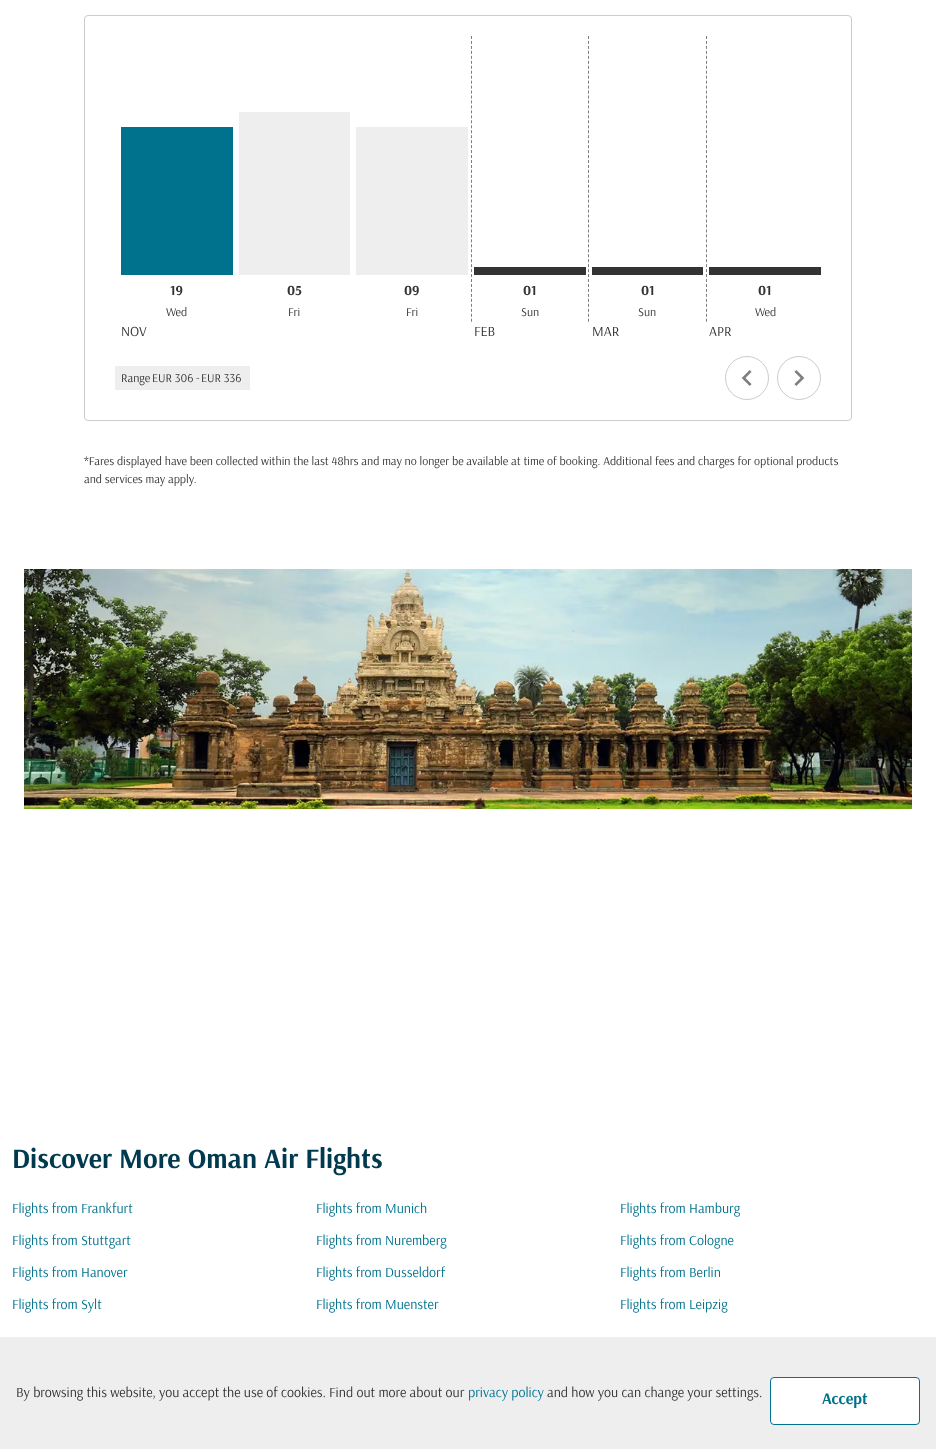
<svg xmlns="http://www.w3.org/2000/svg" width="936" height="1449">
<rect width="100%" height="100%" fill="#fff"/>
<rect x="84.5" y="15.5" width="767" height="405" rx="3.5" fill="none" stroke="#ccc"/>
<rect x="121" y="127" width="112" height="148" fill="#00728e"/>
<text x="170" y="295" style="font-family:Arsenal;font-size:14px;font-weight:bold;fill:#333">19</text>
<text x="166" y="316" style="font-family:Arsenal;font-size:12px;fill:#333">Wed</text>
<text x="121" y="336" style="font-family:Arsenal;font-size:14px;fill:#333">NOV</text>
<rect x="239" y="112" width="111" height="163" fill="#eee"/>
<text x="287" y="295" style="font-family:Arsenal;font-size:14px;font-weight:bold;fill:#333">05</text>
<text x="288" y="316" style="font-family:Arsenal;font-size:12px;fill:#333">Fri</text>
<rect x="356" y="127" width="112" height="148" fill="#eee"/>
<text x="404" y="295" style="font-family:Arsenal;font-size:14px;font-weight:bold;fill:#333">09</text>
<text x="406" y="316" style="font-family:Arsenal;font-size:12px;fill:#333">Fri</text>
<path d="M471.5 36v286" fill="none" stroke="#7e7e7e" stroke-dasharray="3 1.96"/>
<rect x="474" y="267" width="112" height="8" fill="#333"/>
<text x="523" y="295" style="font-family:Arsenal;font-size:14px;font-weight:bold;fill:#333">01</text>
<text x="521" y="316" style="font-family:Arsenal;font-size:12px;fill:#333">Sun</text>
<text x="474" y="336" style="font-family:Arsenal;font-size:14px;fill:#333">FEB</text>
<path d="M588.5 36v286" fill="none" stroke="#7e7e7e" stroke-dasharray="3 1.96"/>
<rect x="592" y="267" width="111" height="8" fill="#333"/>
<text x="641" y="295" style="font-family:Arsenal;font-size:14px;font-weight:bold;fill:#333">01</text>
<text x="638" y="316" style="font-family:Arsenal;font-size:12px;fill:#333">Sun</text>
<text x="592" y="336" style="font-family:Arsenal;font-size:14px;fill:#333">MAR</text>
<path d="M706.5 36v286" fill="none" stroke="#7e7e7e" stroke-dasharray="3 1.96"/>
<rect x="709" y="267" width="112" height="8" fill="#333"/>
<text x="758" y="295" style="font-family:Arsenal;font-size:14px;font-weight:bold;fill:#333">01</text>
<text x="755" y="316" style="font-family:Arsenal;font-size:12px;fill:#333">Wed</text>
<text x="709" y="336" style="font-family:Arsenal;font-size:14px;fill:#333">APR</text>
<rect x="115" y="366" width="135" height="24" fill="#eee"/>
<text x="121" y="382" style="font-family:Arsenal;font-size:12px;fill:#333">Range</text>
<text x="152" y="382" style="font-family:Arsenal;font-size:12px;fill:#333">EUR 306</text>
<text x="196" y="382" style="font-family:Arsenal;font-size:12px;fill:#333">-</text>
<text x="201" y="382" style="font-family:Arsenal;font-size:12px;fill:#333">EUR 336</text>
<circle cx="747" cy="378" r="21.5" fill="none" stroke="#ccc"/>
<image x="741" y="370" width="11" height="16" href="media/1.png"/>
<circle cx="799" cy="378" r="21.5" fill="none" stroke="#ccc"/>
<image x="794" y="370" width="11" height="16" href="media/2.png"/>
<text x="84" y="465" style="font-family:Arsenal;font-size:12px;fill:#333">*Fares displayed have been collected within the last 48hrs and may no longer be available at time of booking. Additional fees and charges for optional products</text>
<text x="84" y="483" style="font-family:Arsenal;font-size:12px;fill:#333">and services may apply.</text>
<image x="24" y="569" width="888" height="240" href="media/3.png"/>
<text x="12" y="1168" style="font-family:Arsenal;font-size:28px;font-weight:bold;fill:#003a4e">Discover More Oman Air Flights</text>
<text x="12" y="1213" style="font-family:Arsenal;font-size:14px;fill:#00728e">Flights from Frankfurt</text>
<text x="316" y="1213" style="font-family:Arsenal;font-size:14px;fill:#00728e">Flights from Munich</text>
<text x="620" y="1213" style="font-family:Arsenal;font-size:14px;fill:#00728e">Flights from Hamburg</text>
<text x="12" y="1245" style="font-family:Arsenal;font-size:14px;fill:#00728e">Flights from Stuttgart</text>
<text x="316" y="1245" style="font-family:Arsenal;font-size:14px;fill:#00728e">Flights from Nuremberg</text>
<text x="620" y="1245" style="font-family:Arsenal;font-size:14px;fill:#00728e">Flights from Cologne</text>
<text x="12" y="1277" style="font-family:Arsenal;font-size:14px;fill:#00728e">Flights from Hanover</text>
<text x="316" y="1277" style="font-family:Arsenal;font-size:14px;fill:#00728e">Flights from Dusseldorf</text>
<text x="620" y="1277" style="font-family:Arsenal;font-size:14px;fill:#00728e">Flights from Berlin</text>
<text x="12" y="1309" style="font-family:Arsenal;font-size:14px;fill:#00728e">Flights from Sylt</text>
<text x="316" y="1309" style="font-family:Arsenal;font-size:14px;fill:#00728e">Flights from Muenster</text>
<text x="620" y="1309" style="font-family:Arsenal;font-size:14px;fill:#00728e">Flights from Leipzig</text>
<rect y="1337" width="936" height="112" fill="#eee"/>
<text x="16" y="1397" style="font-family:Arsenal;font-size:14px;fill:#333">By browsing this website, you accept the use of cookies. Find out more about our</text>
<text x="468" y="1397" style="font-family:Arsenal;font-size:14px;fill:#00728e">privacy policy</text>
<text x="547" y="1397" style="font-family:Arsenal;font-size:14px;fill:#333">and how you can change your settings.</text>
<rect x="770.5" y="1377.5" width="149" height="47" rx="3.5" fill="#fff" stroke="#00728e"/>
<text x="822" y="1404" style="font-family:Arsenal;font-size:16px;font-weight:bold;fill:#00728e">Accept</text>
</svg>
